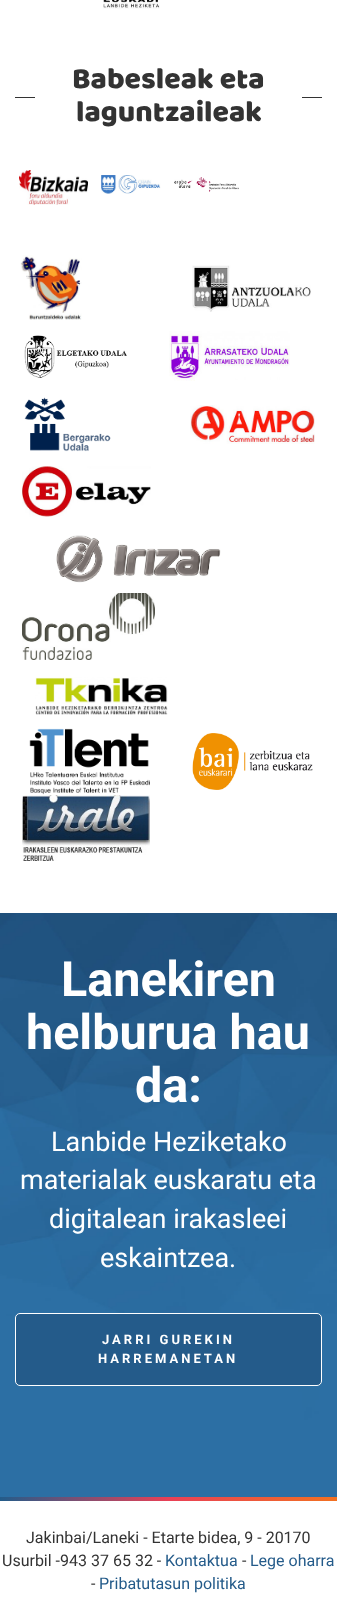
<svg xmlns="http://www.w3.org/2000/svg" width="337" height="1615">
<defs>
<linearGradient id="g1" gradientUnits="userSpaceOnUse" x1="0" y1="1499" x2="337" y2="1499"><stop offset="0" stop-color="#235c8a"/><stop offset="0.5" stop-color="#e94056"/><stop offset="1" stop-color="#f27121"/></linearGradient>
</defs>
<rect width="100%" height="100%" fill="#fff"/>
<image x="103" y="0" width="57" height="9" href="media/1.png"/>
<text x="72" y="88" style="font-family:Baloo;font-size:30px;fill:#333">Babesleak eta</text>
<rect x="15" y="97" width="20" height="1" fill="#333"/>
<rect x="302" y="97" width="20" height="1" fill="#333"/>
<text x="76" y="121" style="font-family:Baloo;font-size:30px;fill:#333">laguntzaileak</text>
<image x="19" y="170" width="69" height="35" href="media/2.png"/>
<image x="101" y="175" width="60" height="19" href="media/3.png"/>
<image x="174" y="177" width="65" height="15" href="media/4.png"/>
<image x="20" y="255" width="62" height="65" href="media/5.png"/>
<image x="192" y="265" width="119" height="47" href="media/6.png"/>
<image x="24" y="335" width="103" height="43" href="media/7.png"/>
<image x="169" y="331" width="121" height="50" href="media/8.png"/>
<image x="24" y="397" width="87" height="55" href="media/9.png"/>
<image x="190" y="405" width="125" height="39" href="media/10.png"/>
<image x="22" y="466" width="129" height="51" href="media/11.png"/>
<image x="56" y="535" width="165" height="48" href="media/12.png"/>
<image x="22" y="593" width="133" height="67" href="media/13.png"/>
<image x="35" y="677" width="133" height="38" href="media/14.png"/>
<image x="29" y="728" width="121" height="67" href="media/15.png"/>
<image x="192" y="733" width="121" height="57" href="media/16.png"/>
<image x="22" y="795" width="128" height="66" href="media/17.png"/>
<image x="0" y="913" width="337" height="584" href="media/18.png"/>
<text x="61" y="996" style="font-family:Roboto;font-size:48.5px;font-weight:bold;fill:#fff">Lanekiren</text>
<text x="26" y="1049" style="font-family:Roboto;font-size:48.5px;font-weight:bold;fill:#fff">helburua hau</text>
<text x="135" y="1102" style="font-family:Roboto;font-size:48.5px;font-weight:bold;fill:#fff">da:</text>
<text x="51" y="1151" style="font-family:Roboto;font-size:27px;fill:#fff">Lanbide Heziketako</text>
<text x="20" y="1189" style="font-family:Roboto;font-size:27px;fill:#fff">materialak euskaratu eta</text>
<text x="49" y="1228" style="font-family:Roboto;font-size:27px;fill:#fff">digitalean irakasleei</text>
<text x="100" y="1267" style="font-family:Roboto;font-size:27px;fill:#fff">eskaintzea.</text>
<rect x="15.5" y="1313.5" width="306" height="72" rx="4.5" fill="#245b8a" stroke="#fff"/>
<text x="102" y="1344" style="font-family:Roboto;font-size:13px;font-weight:bold;letter-spacing:3px;fill:#fff">JARRI GUREKIN</text>
<text x="98" y="1363" style="font-family:Roboto;font-size:13px;font-weight:bold;letter-spacing:3px;fill:#fff">HARREMANETAN</text>
<rect y="1497" width="337" height="4" fill="url(#g1)"/>
<text x="26" y="1543" style="font-family:Roboto;font-size:16px;fill:#333">Jakinbai/Laneki - Etarte bidea, 9 - 20170</text>
<text x="2" y="1566" style="font-family:Roboto;font-size:16px;fill:#333">Usurbil -943 37 65 32 -</text>
<text x="165" y="1566" style="font-family:Roboto;font-size:16px;fill:#245b8a">Kontaktua</text>
<text x="242" y="1566" style="font-family:Roboto;font-size:16px;fill:#333">-</text>
<text x="250" y="1566" style="font-family:Roboto;font-size:16px;fill:#245b8a">Lege oharra</text>
<text x="91" y="1589" style="font-family:Roboto;font-size:16px;fill:#333">-</text>
<text x="99" y="1589" style="font-family:Roboto;font-size:16px;fill:#245b8a">Pribatutasun politika</text>
</svg>
